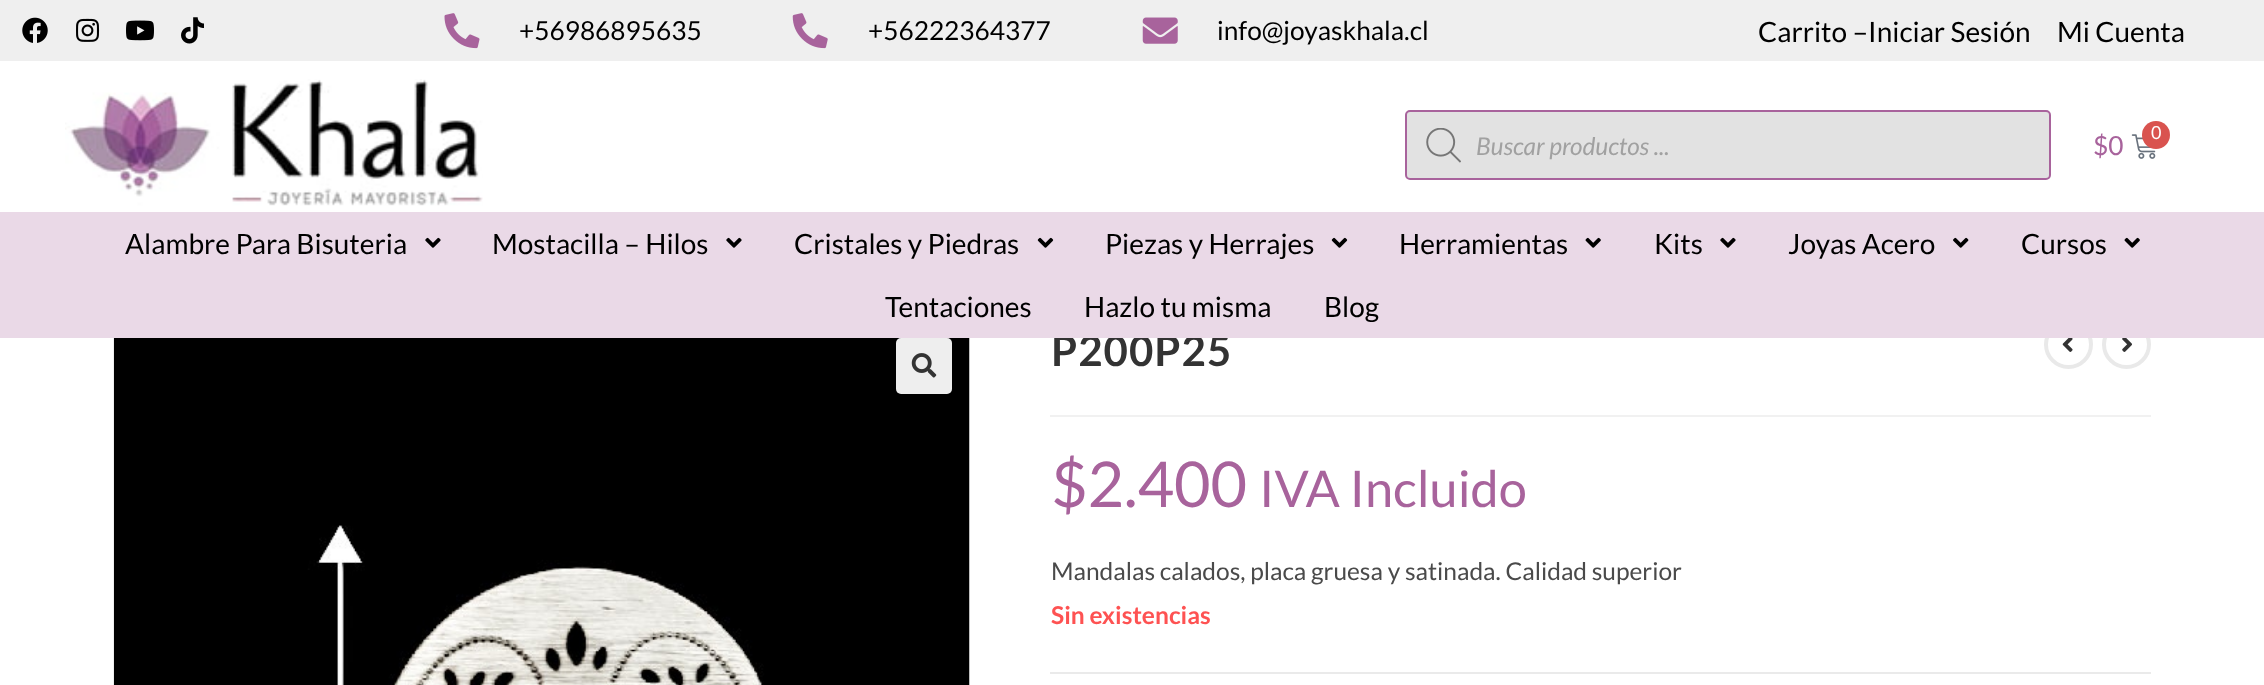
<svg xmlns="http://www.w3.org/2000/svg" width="2264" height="685">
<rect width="100%" height="100%" fill="#fff"/>
<rect width="2264" height="61" fill="#efefef"/>
<image x="22" y="17" width="26" height="26" href="media/1.png"/>
<image x="76" y="18" width="24" height="24" href="media/2.png"/>
<image x="126" y="20" width="28" height="21" href="media/3.png"/>
<image x="181" y="17" width="23" height="27" href="media/4.png"/>
<image x="444" y="13" width="36" height="36" href="media/5.png"/>
<text x="519" y="40" style="font-family:Lato;font-size:26.25px;fill:#000">+56986895635</text>
<image x="792" y="13" width="36" height="36" href="media/6.png"/>
<text x="868" y="40" style="font-family:Lato;font-size:26.25px;fill:#000">+56222364377</text>
<image x="1142" y="17" width="36" height="27" href="media/7.png"/>
<text x="1217" y="40" style="font-family:Lato;font-size:26.25px;fill:#000">info@joyaskhala.cl</text>
<text x="1758" y="42" style="font-family:Lato;font-size:28px;fill:#000">Carrito –Iniciar Sesión</text>
<text x="2057" y="42" style="font-family:Lato;font-size:28px;fill:#000">Mi Cuenta</text>
<image x="65" y="79" width="418" height="127" href="media/8.png"/>
<rect x="1406" y="111" width="644" height="68" rx="4" fill="#e2e2e2" stroke="#a8639c" stroke-width="2"/>
<image x="1426" y="128" width="35" height="35" href="media/9.png"/>
<text x="1476" y="155" style="font-family:Lato;font-size:24.5px;font-style:italic;fill:#a1a1a1">Buscar productos ...</text>
<text x="2093" y="155" style="font-family:Lato;font-size:26.25px;fill:#a8639c">$0</text>
<image x="2131" y="134" width="25" height="25" href="media/10.png"/>
<circle cx="2156" cy="135" r="14" fill="#d9534f"/>
<text x="2151" y="139" style="font-family:Lato;font-size:18px;fill:#fff">0</text>
<text x="1051" y="366" style="font-family:Lato;font-size:42px;font-weight:bold;letter-spacing:1px;fill:#333">P200P25</text>
<circle cx="2068.5" cy="344.5" r="22.5" fill="none" stroke="#e9e9e9" stroke-width="4"/>
<circle cx="2126.5" cy="344.5" r="22.5" fill="none" stroke="#e9e9e9" stroke-width="4"/>
<rect y="212" width="2264" height="126" fill="#ead9e7"/>
<text x="125" y="254" style="font-family:Lato;font-size:28px;fill:#000">Alambre Para Bisuteria</text>
<image x="425" y="237" width="16" height="11" href="media/11.png"/>
<text x="492" y="254" style="font-family:Lato;font-size:28px;fill:#000">Mostacilla – Hilos</text>
<image x="726" y="237" width="16" height="11" href="media/11.png"/>
<text x="794" y="254" style="font-family:Lato;font-size:28px;fill:#000">Cristales y Piedras</text>
<image x="1037" y="237" width="17" height="11" href="media/12.png"/>
<text x="1105" y="254" style="font-family:Lato;font-size:28px;fill:#000">Piezas y Herrajes</text>
<image x="1331" y="237" width="17" height="11" href="media/12.png"/>
<text x="1399" y="254" style="font-family:Lato;font-size:28px;fill:#000">Herramientas</text>
<image x="1585" y="237" width="16" height="11" href="media/13.png"/>
<text x="1654" y="254" style="font-family:Lato;font-size:28px;fill:#000">Kits</text>
<image x="1720" y="237" width="16" height="11" href="media/11.png"/>
<text x="1788" y="254" style="font-family:Lato;font-size:28px;fill:#000">Joyas Acero</text>
<image x="1953" y="237" width="16" height="11" href="media/14.png"/>
<text x="2021" y="254" style="font-family:Lato;font-size:28px;fill:#000">Cursos</text>
<image x="2124" y="237" width="16" height="11" href="media/13.png"/>
<text x="885" y="317" style="font-family:Lato;font-size:28px;fill:#000">Tentaciones</text>
<text x="1084" y="317" style="font-family:Lato;font-size:28px;fill:#000">Hazlo tu misma</text>
<text x="1324" y="317" style="font-family:Lato;font-size:28px;fill:#000">Blog</text>
<image x="113" y="338" width="857" height="347" href="media/15.png"/>
<rect x="896" y="338" width="56" height="56" rx="5" fill="#eee"/>
<image x="911" y="353" width="26" height="25" href="media/16.png"/>
<rect x="1050" y="415" width="1101" height="2" fill="#f1f1f1"/>
<text x="1051" y="507" style="font-family:Lato;font-size:63px;fill:#a8639c">$2.400</text>
<text x="1259" y="507" style="font-family:Lato;font-size:50.5px;fill:#a8639c">IVA Incluido</text>
<text x="1051" y="580" style="font-family:Lato;font-size:24.5px;fill:#4a4a4a">Mandalas calados, placa gruesa y satinada. Calidad superior</text>
<text x="1051" y="624" style="font-family:Lato;font-size:24.5px;font-weight:bold;fill:#fe5252">Sin existencias</text>
<rect x="1050" y="672" width="1101" height="2" fill="#eaeaea"/>
<image x="2062" y="338" width="11" height="14" href="media/17.png"/>
<image x="2122" y="338" width="10" height="14" href="media/18.png"/>
</svg>
